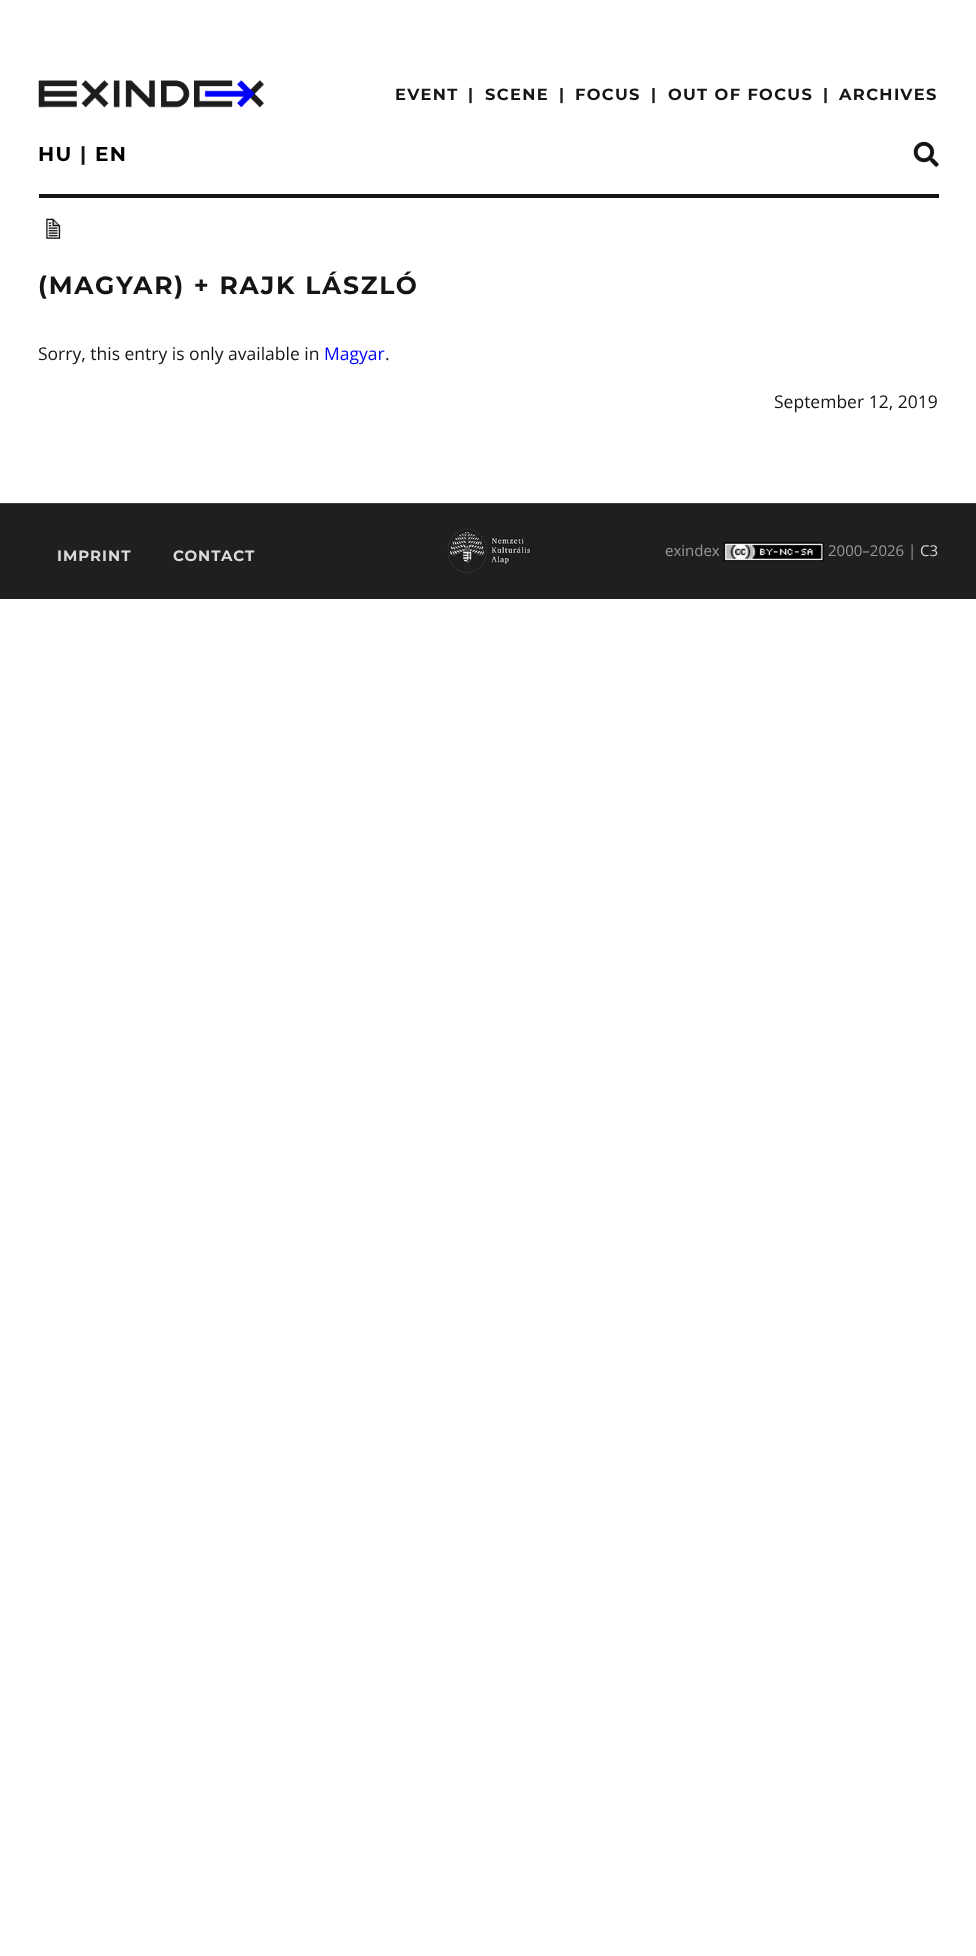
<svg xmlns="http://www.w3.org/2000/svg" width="976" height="1956">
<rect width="100%" height="100%" fill="#fff"/>
<image x="38" y="80" width="226" height="28" href="media/1.png"/>
<text x="395" y="100" style="font-family:Montserrat;font-size:16.25px;font-weight:bold;letter-spacing:1.4px;fill:#151515">EVENT</text>
<text x="468" y="100" style="font-family:Montserrat;font-size:16.25px;font-weight:bold;letter-spacing:1.4px;fill:#151515">|</text>
<text x="485" y="100" style="font-family:Montserrat;font-size:16.25px;font-weight:bold;letter-spacing:1.4px;fill:#151515">SCENE</text>
<text x="559" y="100" style="font-family:Montserrat;font-size:16.25px;font-weight:bold;letter-spacing:1.4px;fill:#151515">|</text>
<text x="575" y="100" style="font-family:Montserrat;font-size:16.25px;font-weight:bold;letter-spacing:1.4px;fill:#151515">FOCUS</text>
<text x="651" y="100" style="font-family:Montserrat;font-size:16.25px;font-weight:bold;letter-spacing:1.4px;fill:#151515">|</text>
<text x="668" y="100" style="font-family:Montserrat;font-size:16.25px;font-weight:bold;letter-spacing:1.4px;fill:#151515">OUT OF FOCUS</text>
<text x="823" y="100" style="font-family:Montserrat;font-size:16.25px;font-weight:bold;letter-spacing:1.4px;fill:#151515">|</text>
<text x="839" y="100" style="font-family:Montserrat;font-size:16.25px;font-weight:bold;letter-spacing:1.4px;fill:#151515">ARCHIVES</text>
<text x="38" y="161" style="font-family:Montserrat;font-size:20px;font-weight:bold;letter-spacing:1.4px;fill:#000">HU</text>
<text x="80" y="161" style="font-family:Montserrat;font-size:20px;font-weight:bold;letter-spacing:1.4px;fill:#151515">|</text>
<text x="95" y="161" style="font-family:Montserrat;font-size:20px;font-weight:bold;letter-spacing:1.4px;fill:#000">EN</text>
<image x="913" y="141" width="26" height="26" href="media/2.png"/>
<rect x="39" y="194" width="900" height="4" fill="#151515"/>
<image x="46" y="218" width="15" height="21" href="media/3.png"/>
<text x="38" y="294" style="font-family:Montserrat;font-size:25px;font-weight:bold;letter-spacing:1.75px;fill:#151515">(MAGYAR) + RAJK LÁSZLÓ</text>
<text x="38" y="360" style="font-family:Open Sans;font-size:17.5px;fill:#151515">Sorry, this entry is only available in</text>
<text x="324" y="360" style="font-family:Open Sans;font-size:17.5px;fill:#00f">Magyar</text>
<text x="385" y="360" style="font-family:Open Sans;font-size:17.5px;fill:#151515">.</text>
<text x="774" y="408" style="font-family:Open Sans;font-size:17.5px;fill:#151515">September 12, 2019</text>
<rect y="504" width="976" height="95" fill="#1f1f1f"/>
<rect y="503" width="976" height="1" fill="#3a3a3a"/>
<text x="57" y="561" style="font-family:Montserrat;font-size:15px;font-weight:bold;letter-spacing:1px;fill:#dadada">IMPRINT</text>
<text x="173" y="561" style="font-family:Montserrat;font-size:15px;font-weight:bold;letter-spacing:1px;fill:#dadada">CONTACT</text>
<image x="447" y="528" width="84" height="45" href="media/4.png"/>
<text x="665" y="556" style="font-family:Open Sans;font-size:15px;fill:#999">exindex</text>
<image x="723" y="542" width="101" height="20" href="media/5.png"/>
<text x="828" y="556" style="font-family:Open Sans;font-size:15px;fill:#999">2000–2026 |</text>
<text x="920" y="556" style="font-family:Open Sans;font-size:15px;fill:#dadada">C3</text>
</svg>
